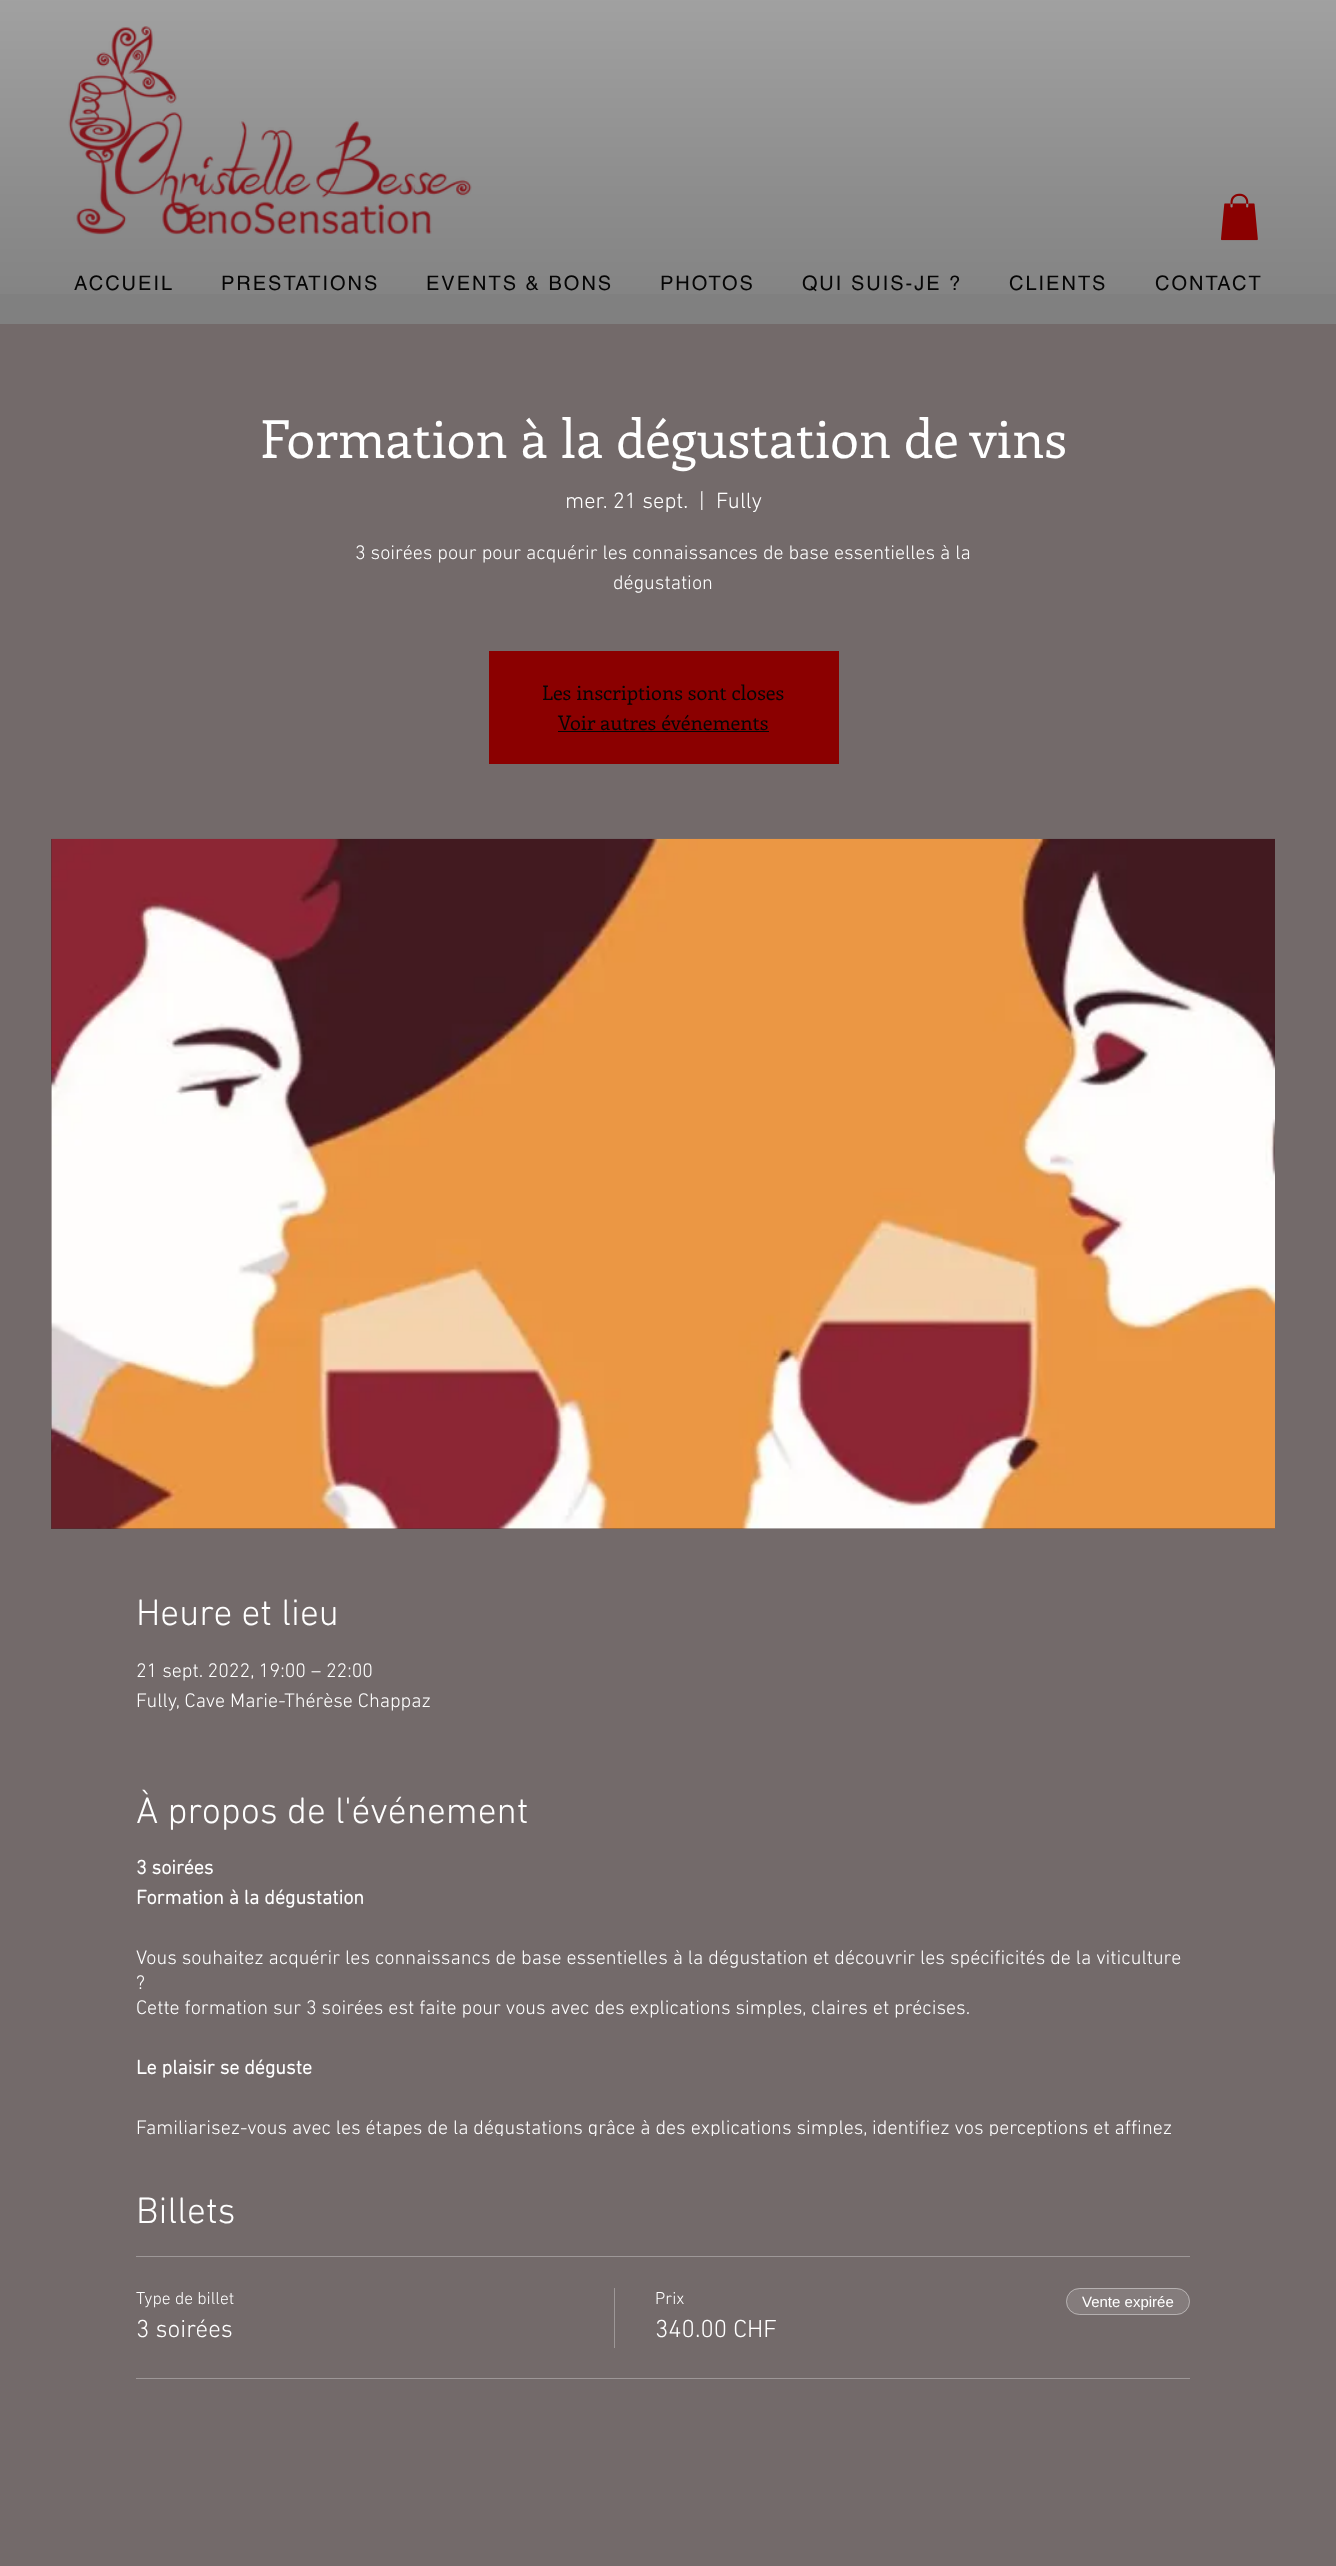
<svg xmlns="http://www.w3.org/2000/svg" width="1336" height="2566">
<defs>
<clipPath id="clip1"><rect x="136" y="1856" width="1054" height="280"/></clipPath>
</defs>
<rect width="100%" height="100%" fill="#736a6a"/>
<rect width="1336" height="324" fill="#808080"/>
<image x="0" y="0" width="1336" height="294" href="media/1.png"/>
<image x="68" y="26" width="404" height="209" href="media/2.png"/>
<image x="1221" y="193" width="37" height="48" href="media/3.png"/>
<text x="74" y="290" style="font-family:helvetica;font-size:20px;letter-spacing:2px;fill:#050505">ACCUEIL</text>
<text x="221" y="290" style="font-family:helvetica;font-size:20px;letter-spacing:2px;fill:#050505">PRESTATIONS</text>
<text x="426" y="290" style="font-family:helvetica;font-size:20px;letter-spacing:2px;fill:#050505">EVENTS &amp; BONS</text>
<text x="660" y="290" style="font-family:helvetica;font-size:20px;letter-spacing:2px;fill:#050505">PHOTOS</text>
<text x="802" y="290" style="font-family:helvetica;font-size:20px;letter-spacing:2px;fill:#050505">QUI SUIS-JE ?</text>
<text x="1009" y="290" style="font-family:helvetica;font-size:20px;letter-spacing:2px;fill:#050505">CLIENTS</text>
<text x="1155" y="290" style="font-family:helvetica;font-size:20px;letter-spacing:2px;fill:#050505">CONTACT</text>
<text x="260" y="458" style="font-family:Enriqueta;font-size:52.5px;fill:#fff">Formation à la dégustation de vins</text>
<text x="565" y="508" style="font-family:'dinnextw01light';font-size:22.5px;font-weight:300;fill:#fff">mer. 21 sept.</text>
<text x="699" y="508" style="font-family:'dinnextw01light';font-size:22.5px;font-weight:300;fill:#fff">|</text>
<text x="716" y="508" style="font-family:'dinnextw01light';font-size:22.5px;font-weight:300;fill:#fff">Fully</text>
<text x="355" y="559" style="font-family:'dinnextw01light';font-size:20px;font-weight:300;fill:#fff">3 soirées pour pour acquérir les connaissances de base essentielles à la</text>
<text x="613" y="589" style="font-family:'dinnextw01light';font-size:20px;font-weight:300;fill:#fff">dégustation</text>
<rect x="489" y="651" width="350" height="113" fill="#8b0000"/>
<text x="542" y="700" style="font-family:Enriqueta;font-size:20px;fill:#050505">Les inscriptions sont closes</text>
<text x="558" y="730" style="font-family:Enriqueta;font-size:20px;fill:#050505">Voir autres événements</text>
<rect x="558" y="731" width="211" height="1" fill="#050505"/>
<rect x="51" y="839" width="1224" height="690" fill="#423535"/>
<image x="51" y="838" width="1224" height="691" href="media/4.png"/>
<text x="136" y="1625" style="font-family:'dinnextw01light';font-size:37.5px;font-weight:300;fill:#fff">Heure et lieu</text>
<text x="136" y="1677" style="font-family:'dinnextw01light';font-size:20px;font-weight:300;fill:#fff">21 sept. 2022, 19:00 – 22:00</text>
<text x="136" y="1707" style="font-family:'dinnextw01light';font-size:20px;font-weight:300;fill:#fff">Fully, Cave Marie-Thérèse Chappaz</text>
<text x="136" y="1823" style="font-family:'dinnextw01light';font-size:37.5px;font-weight:300;fill:#fff">À propos de l'événement</text>
<text x="136" y="1874" style="font-family:'dinnextw01light';font-size:20px;font-weight:bold;fill:#fff">3 soirées</text>
<text x="136" y="1904" style="font-family:'dinnextw01light';font-size:20px;font-weight:bold;fill:#fff">Formation à la dégustation</text>
<text x="136" y="1964" style="font-family:'dinnextw01light';font-size:20px;font-weight:300;fill:#fff">Vous souhaitez acquérir les connaissancs de base essentielles à la dégustation et découvrir les spécificités de la viticulture</text>
<text x="136" y="1989" style="font-family:'dinnextw01light';font-size:20px;font-weight:300;fill:#fff">?</text>
<text x="136" y="2014" style="font-family:'dinnextw01light';font-size:20px;font-weight:300;fill:#fff">Cette formation sur 3 soirées est faite pour vous avec des explications simples, claires et précises.</text>
<text x="136" y="2074" style="font-family:'dinnextw01light';font-size:20px;font-weight:bold;fill:#fff">Le plaisir se déguste</text>
<g clip-path="url(#clip1)">
<text x="136" y="2134" style="font-family:'dinnextw01light';font-size:20px;font-weight:300;fill:#fff">Familiarisez-vous avec les étapes de la dégustations grâce à des explications simples, identifiez vos perceptions et affinez</text>
</g>
<text x="136" y="2223" style="font-family:'dinnextw01light';font-size:37.5px;font-weight:300;fill:#fff">Billets</text>
<rect x="136" y="2256" width="1054" height="1" fill="#9d9797"/>
<rect x="136" y="2378" width="1054" height="1" fill="#9d9797"/>
<text x="136" y="2304" style="font-family:'dinnextw01light';font-size:17.5px;font-weight:300;fill:#fff">Type de billet</text>
<text x="136" y="2337" style="font-family:'dinnextw01light';font-size:25px;font-weight:300;fill:#fff">3 soirées</text>
<rect x="614" y="2288" width="1" height="60" fill="#9d9797"/>
<text x="655" y="2304" style="font-family:'dinnextw01light';font-size:17.5px;font-weight:300;fill:#fff">Prix</text>
<text x="655" y="2337" style="font-family:'dinnextw01light';font-size:25px;font-weight:300;fill:#fff">340.00 CHF</text>
<rect x="1066" y="2288" width="124" height="27" rx="13.5" fill="#847c7c"/>
<rect x="1066.5" y="2288.5" width="123" height="26" rx="13" fill="none" stroke="#ffffff66"/>
<text x="1082" y="2307" style="font-family:Liberation Sans;font-size:15px;fill:#fff">Vente expirée</text>
</svg>
